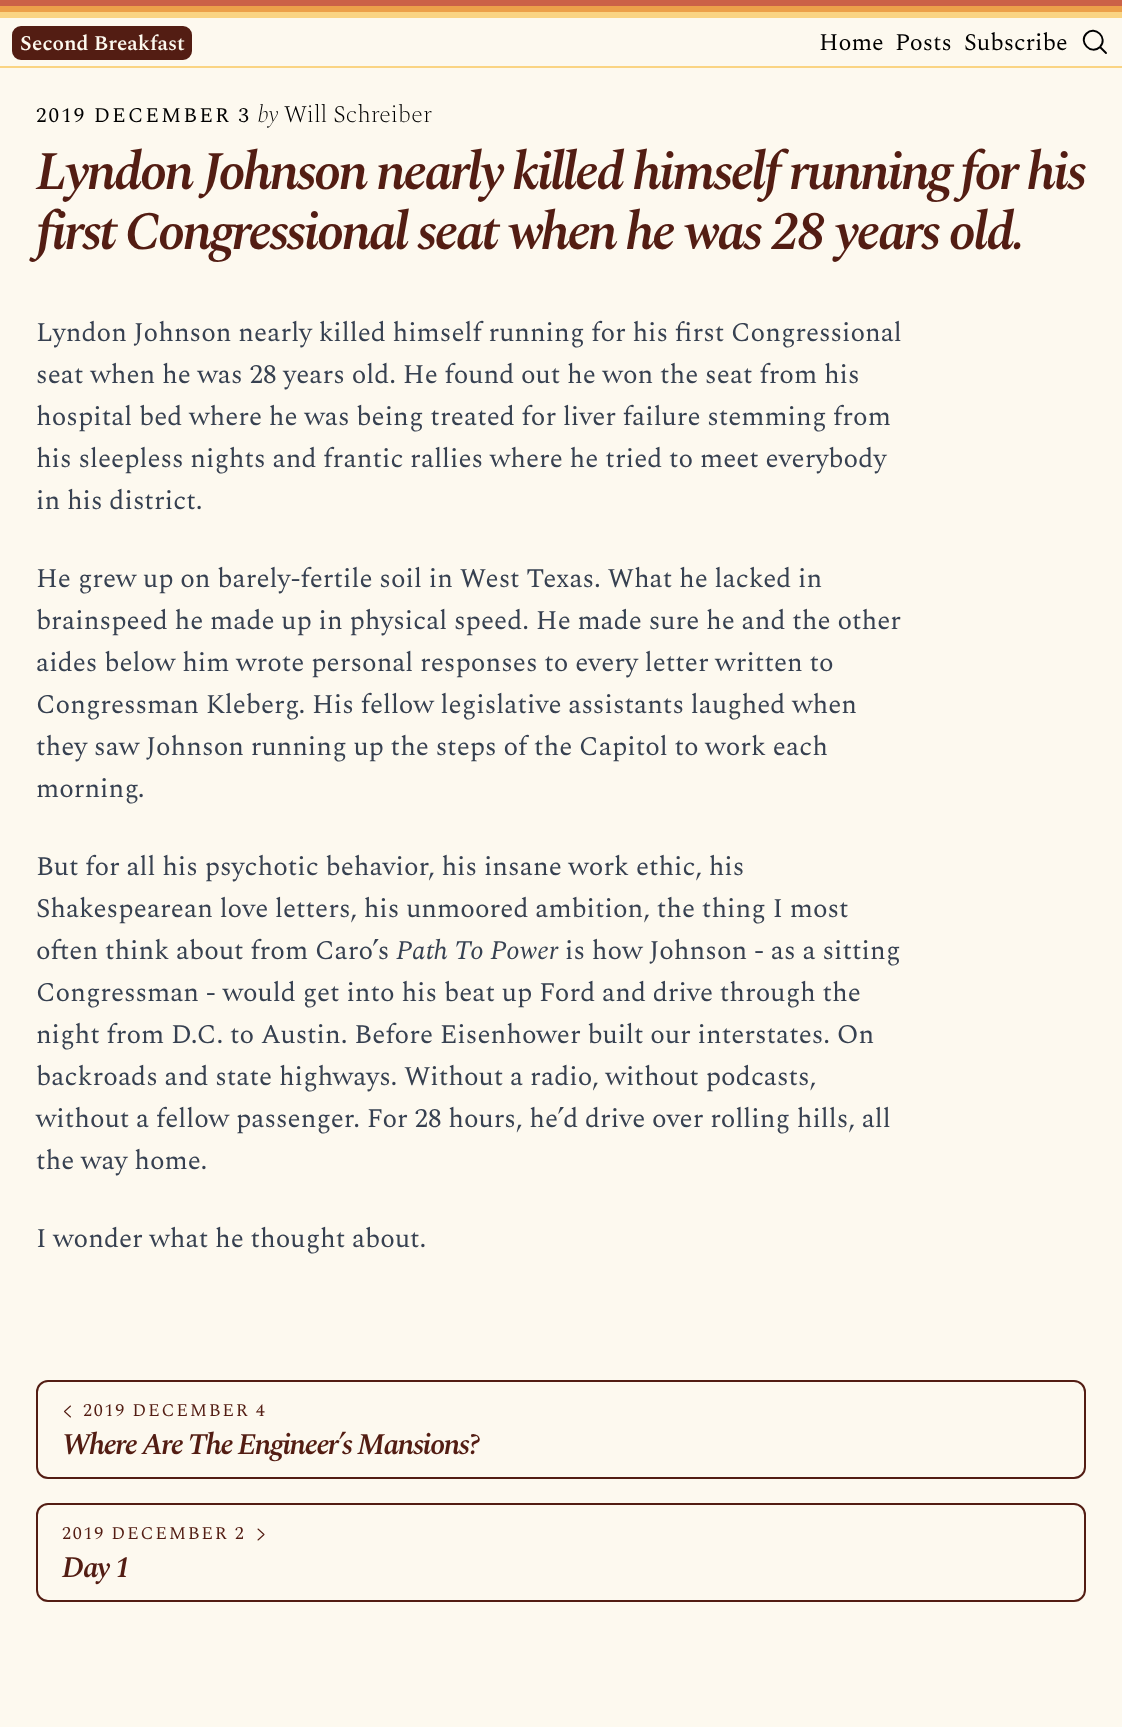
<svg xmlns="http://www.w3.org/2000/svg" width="1122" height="1727">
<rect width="100%" height="100%" fill="#fdf9ef"/>
<rect y="66" width="1122" height="2" fill="#fad483"/>
<rect width="1122" height="6" fill="#cb6147"/>
<rect y="6" width="1122" height="6" fill="#eca04a"/>
<rect y="12" width="1122" height="6" fill="#fad483"/>
<rect x="13" y="27" width="178" height="32" rx="8" fill="#531d13" stroke="#531d13" stroke-width="2"/>
<text x="20" y="50" style="font-family:Spectral;font-size:21px;font-weight:600;fill:#fdf9ef">Second Breakfast</text>
<text x="819" y="50" style="font-family:Spectral;font-size:24px;fill:#000">Home</text>
<text x="895" y="50" style="font-family:Spectral;font-size:24px;fill:#000">Posts</text>
<text x="964" y="50" style="font-family:Spectral;font-size:24px;fill:#000">Subscribe</text>
<path d="M1106 53l-6-6m0 0c8.5-9-5-22-13.5-13.5c-8.5 8.5 4.5 22 13.5 13.5z" fill="none" stroke="#000" stroke-width="1.9" stroke-linecap="round" stroke-linejoin="round"/>
<text x="36" y="122" style="font-family:Spectral;font-size:21px;letter-spacing:2.1px;fill:#000">2019 DECEMBER 3</text>
<text x="257" y="122" style="font-family:Spectral;font-size:24px;font-weight:200;font-style:italic;fill:#000">by</text>
<text x="284" y="122" style="font-family:Spectral;font-size:24px;font-weight:200;fill:#000">Will Schreiber</text>
<text x="36" y="189" style="font-family:Spectral;font-size:54px;font-weight:600;font-style:italic;letter-spacing:-2.7px;fill:#531d13">Lyndon Johnson nearly killed himself running for his</text>
<text x="36" y="249" style="font-family:Spectral;font-size:54px;font-weight:600;font-style:italic;letter-spacing:-2.7px;fill:#531d13">first Congressional seat when he was 28 years old.</text>
<text x="36" y="341" style="font-family:Spectral;font-size:27px;fill:#374151">Lyndon Johnson nearly killed himself running for his first Congressional</text>
<text x="36" y="383" style="font-family:Spectral;font-size:27px;fill:#374151">seat when he was 28 years old. He found out he won the seat from his</text>
<text x="36" y="425" style="font-family:Spectral;font-size:27px;fill:#374151">hospital bed where he was being treated for liver failure stemming from</text>
<text x="36" y="467" style="font-family:Spectral;font-size:27px;fill:#374151">his sleepless nights and frantic rallies where he tried to meet everybody</text>
<text x="36" y="509" style="font-family:Spectral;font-size:27px;fill:#374151">in his district.</text>
<text x="36" y="587" style="font-family:Spectral;font-size:27px;fill:#374151">He grew up on barely-fertile soil in West Texas. What he lacked in</text>
<text x="36" y="629" style="font-family:Spectral;font-size:27px;fill:#374151">brainspeed he made up in physical speed. He made sure he and the other</text>
<text x="36" y="671" style="font-family:Spectral;font-size:27px;fill:#374151">aides below him wrote personal responses to every letter written to</text>
<text x="36" y="713" style="font-family:Spectral;font-size:27px;fill:#374151">Congressman Kleberg. His fellow legislative assistants laughed when</text>
<text x="36" y="755" style="font-family:Spectral;font-size:27px;fill:#374151">they saw Johnson running up the steps of the Capitol to work each</text>
<text x="36" y="797" style="font-family:Spectral;font-size:27px;fill:#374151">morning.</text>
<text x="36" y="875" style="font-family:Spectral;font-size:27px;fill:#374151">But for all his psychotic behavior, his insane work ethic, his</text>
<text x="36" y="917" style="font-family:Spectral;font-size:27px;fill:#374151">Shakespearean love letters, his unmoored ambition, the thing I most</text>
<text x="36" y="959" style="font-family:Spectral;font-size:27px;fill:#374151">often think about from Caro’s</text>
<text x="396" y="959" style="font-family:Spectral;font-size:27px;font-style:italic;fill:#374151">Path To Power</text>
<text x="565" y="959" style="font-family:Spectral;font-size:27px;fill:#374151">is how Johnson - as a sitting</text>
<text x="36" y="1001" style="font-family:Spectral;font-size:27px;fill:#374151">Congressman - would get into his beat up Ford and drive through the</text>
<text x="36" y="1043" style="font-family:Spectral;font-size:27px;fill:#374151">night from D.C. to Austin. Before Eisenhower built our interstates. On</text>
<text x="36" y="1085" style="font-family:Spectral;font-size:27px;fill:#374151">backroads and state highways. Without a radio, without podcasts,</text>
<text x="36" y="1127" style="font-family:Spectral;font-size:27px;fill:#374151">without a fellow passenger. For 28 hours, he’d drive over rolling hills, all</text>
<text x="36" y="1169" style="font-family:Spectral;font-size:27px;fill:#374151">the way home.</text>
<text x="36" y="1247" style="font-family:Spectral;font-size:27px;fill:#374151">I wonder what he thought about.</text>
<rect x="37" y="1381" width="1048" height="97" rx="11" fill="none" stroke="#531d13" stroke-width="2"/>
<path d="M70.5 1417l-6-5.5l6-5.5" fill="none" stroke="#531d13" stroke-width="1.1" stroke-linecap="round" stroke-linejoin="round"/>
<text x="83" y="1416" style="font-family:Spectral;font-size:18px;letter-spacing:1.75px;fill:#531d13">2019 DECEMBER 4</text>
<text x="62" y="1454" style="font-family:Spectral;font-size:30px;font-weight:600;font-style:italic;letter-spacing:-1.5px;fill:#531d13">Where Are The Engineer’s Mansions?</text>
<rect x="37" y="1504" width="1048" height="97" rx="11" fill="none" stroke="#531d13" stroke-width="2"/>
<text x="62" y="1539" style="font-family:Spectral;font-size:18px;letter-spacing:1.75px;fill:#531d13">2019 DECEMBER 2</text>
<path d="M258 1529l6 5.5l-6 5.5" fill="none" stroke="#531d13" stroke-width="1.1" stroke-linecap="round" stroke-linejoin="round"/>
<text x="62" y="1577" style="font-family:Spectral;font-size:30px;font-weight:600;font-style:italic;letter-spacing:-1.5px;fill:#531d13">Day 1</text>
</svg>
